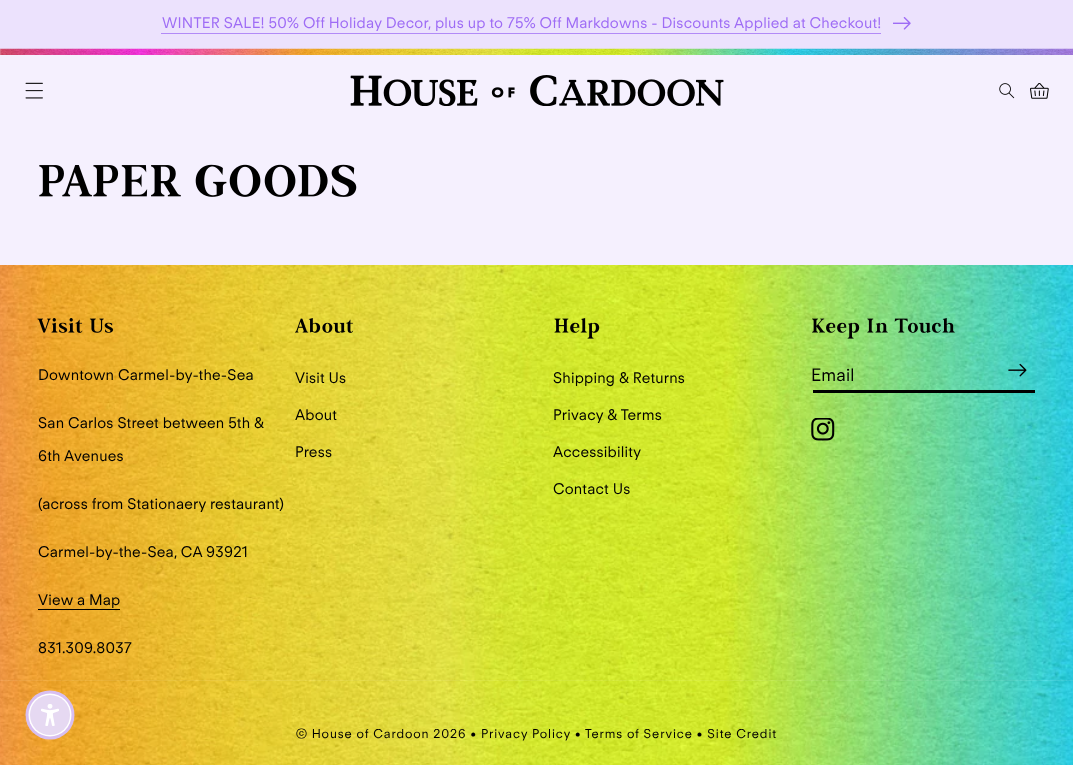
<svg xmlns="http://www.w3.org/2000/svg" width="1073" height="765">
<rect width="100%" height="100%" fill="#f5f0fe"/>
<rect width="1073" height="53" fill="#ece2fd"/>
<text x="162" y="28" style="font-family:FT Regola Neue;font-size:15px;letter-spacing:0.22px;fill:#9e6cf5">WINTER SALE! 50% Off Holiday Decor, plus up to 75% Off Markdowns - Discounts Applied at Checkout!</text>
<rect x="161" y="33" width="720" height="1" fill="#b28af7"/>
<image x="893" y="17" width="18" height="13" href="media/1.png"/>
<image x="0" y="48" width="1073" height="7" href="media/2.png"/>
<image x="25" y="82" width="18" height="17" href="media/3.png"/>
<image x="350" y="75" width="374" height="31" href="media/4.png"/>
<image x="999" y="83" width="16" height="16" href="media/5.png"/>
<image x="1030" y="83" width="19" height="16" href="media/6.png"/>
<image x="39" y="164" width="318" height="33" href="media/7.png"/>
<image x="0" y="265" width="1073" height="500" href="media/8.png"/>
<image x="37" y="318" width="76" height="15" href="media/9.png"/>
<text x="38" y="380" style="font-family:FT Regola Neue;font-size:15px;letter-spacing:0.2px;fill:#000">Downtown Carmel-by-the-Sea</text>
<text x="38" y="428" style="font-family:FT Regola Neue;font-size:15px;letter-spacing:0.2px;fill:#000">San Carlos Street between 5th &amp;</text>
<text x="38" y="461" style="font-family:FT Regola Neue;font-size:15px;letter-spacing:0.2px;fill:#000">6th Avenues</text>
<text x="38" y="509" style="font-family:FT Regola Neue;font-size:15px;letter-spacing:0.2px;fill:#000">(across from Stationaery restaurant)</text>
<text x="38" y="557" style="font-family:FT Regola Neue;font-size:15px;letter-spacing:0.2px;fill:#000">Carmel-by-the-Sea, CA 93921</text>
<text x="38" y="605" style="font-family:FT Regola Neue;font-size:15px;letter-spacing:0.2px;fill:#000">View a Map</text>
<rect x="38" y="609" width="82" height="1" fill="#000"/>
<text x="38" y="653" style="font-family:FT Regola Neue;font-size:15px;letter-spacing:0.2px;fill:#000">831.309.8037</text>
<image x="295" y="318" width="59" height="15" href="media/10.png"/>
<text x="295" y="383" style="font-family:FT Regola Neue;font-size:15px;letter-spacing:0.2px;fill:#000">Visit Us</text>
<text x="295" y="420" style="font-family:FT Regola Neue;font-size:15px;letter-spacing:0.2px;fill:#000">About</text>
<text x="295" y="457" style="font-family:FT Regola Neue;font-size:15px;letter-spacing:0.2px;fill:#000">Press</text>
<image x="554" y="318" width="46" height="21" href="media/11.png"/>
<text x="553" y="383" style="font-family:FT Regola Neue;font-size:15px;letter-spacing:0.2px;fill:#000">Shipping &amp; Returns</text>
<text x="553" y="420" style="font-family:FT Regola Neue;font-size:15px;letter-spacing:0.2px;fill:#000">Privacy &amp; Terms</text>
<text x="553" y="457" style="font-family:FT Regola Neue;font-size:15px;letter-spacing:0.2px;fill:#000">Accessibility</text>
<text x="553" y="494" style="font-family:FT Regola Neue;font-size:15px;letter-spacing:0.2px;fill:#000">Contact Us</text>
<image x="812" y="318" width="143" height="21" href="media/12.png"/>
<text x="811" y="381" style="font-family:FT Regola Neue;font-size:17.5px;letter-spacing:0.2px;fill:#000">Email</text>
<image x="1008" y="363" width="19" height="14" href="media/13.png"/>
<rect x="813" y="390" width="222" height="3" fill="#000"/>
<image x="811" y="418" width="24" height="23" href="media/14.png"/>
<rect y="680" width="1073" height="1" fill="#ffffff14"/>
<text x="296" y="738" style="font-family:FT Regola Neue;font-size:12.5px;letter-spacing:0.9px;fill:#000">© House of Cardoon 2026 • Privacy Policy •</text>
<text x="585" y="738" style="font-family:FT Regola Neue;font-size:12.5px;letter-spacing:0.9px;fill:#000">Terms of Service • Site Credit</text>
<circle cx="50" cy="715" r="24.5" fill="#d8bff1"/>
<circle cx="50" cy="715" r="21.5" fill="#fff"/>
<circle cx="50" cy="715" r="20" fill="#e6d9f2"/>
<image x="41" y="704" width="18" height="22" href="media/15.png"/>
</svg>
